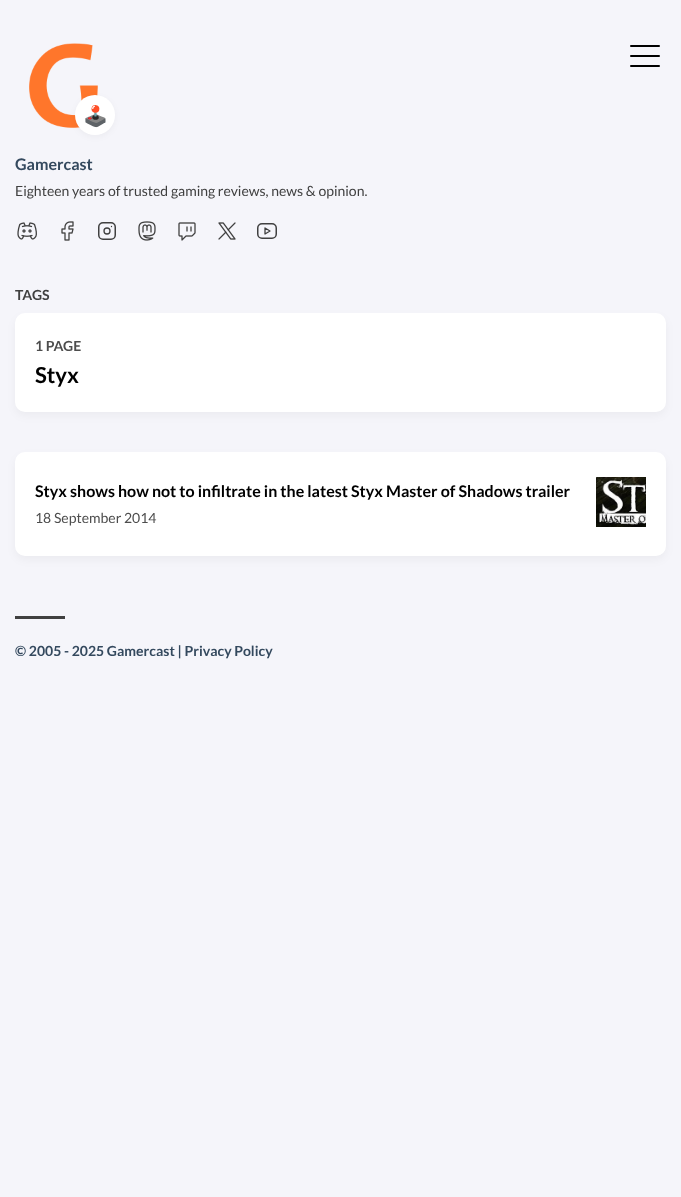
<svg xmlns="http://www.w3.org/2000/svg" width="681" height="1197">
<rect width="100%" height="100%" fill="#f5f5fa"/>
<rect x="630" y="55" width="30" height="2" rx="1" fill="#000"/>
<rect x="630" y="45" width="30" height="2" rx="1" fill="#000"/>
<rect x="630" y="65" width="30" height="2" rx="1" fill="#000"/>
<image x="29" y="43" width="69" height="85" href="media/1.png"/>
<rect x="75" y="97" width="40" height="40" rx="20" fill="#0000000a" filter="blur(3px)"/>
<circle cx="95" cy="115" r="20" fill="#fff"/>
<text x="83" y="123" style="font-family:Noto Color Emoji;font-size:20px;fill:#000">🕹️</text>
<text x="15" y="170" style="font-family:Lato;font-size:16px;font-weight:bold;fill:#34495e">Gamercast</text>
<text x="15" y="196" style="font-family:Lato;font-size:14px;fill:#404040">Eighteen years of trusted gaming reviews, news &amp; opinion.</text>
<image x="17" y="222" width="20" height="18" href="media/2.png"/>
<image x="61" y="221" width="13" height="20" href="media/3.png"/>
<rect x="98.75" y="222.75" width="16.5" height="16.5" rx="4.25" fill="none" stroke="#404040" stroke-width="1.5"/>
<circle cx="107" cy="231" r="3" fill="none" stroke="#404040" stroke-width="1.3"/>
<path d="M111.5 226.5h0" fill="none" stroke="#404040" stroke-width="1.3" stroke-linecap="round" stroke-linejoin="round"/>
<image x="138" y="221" width="18" height="20" href="media/4.png"/>
<image x="178" y="222" width="18" height="19" href="media/5.png"/>
<image x="218" y="222" width="18" height="18" href="media/6.png"/>
<rect x="257.75" y="223.75" width="18.5" height="14.5" rx="4.25" fill="none" stroke="#404040" stroke-width="1.5"/>
<path d="M265 228l5 3l-5 3z" fill="none" stroke="#404040" stroke-width="1.3" stroke-linecap="round" stroke-linejoin="round"/>
<text x="15" y="300" style="font-family:Lato;font-size:14px;font-weight:bold;fill:#404040">TAGS</text>
<rect x="15" y="317" width="651" height="99" rx="10" fill="#0000000a" filter="blur(4px)"/>
<rect x="15" y="313" width="651" height="99" rx="10" fill="#fff"/>
<text x="35" y="351" style="font-family:Lato;font-size:14px;font-weight:bold;fill:#4d4d4d">1 PAGE</text>
<text x="35" y="383" style="font-family:Lato;font-size:22px;font-weight:bold;fill:#000">Styx</text>
<rect x="15" y="456" width="651" height="104" rx="10" fill="#0000000a" filter="blur(4px)"/>
<rect x="15" y="452" width="651" height="104" rx="10" fill="#fff"/>
<text x="35" y="497" style="font-family:Lato;font-size:16px;font-weight:bold;fill:#000">Styx shows how not to infiltrate in the latest Styx Master of Shadows trailer</text>
<text x="35" y="523" style="font-family:Lato;font-size:14px;fill:#4d4d4d">18 September 2014</text>
<image x="596" y="477" width="50" height="50" href="media/7.png"/>
<rect x="15" y="616" width="50" height="3" fill="#404040"/>
<text x="15" y="656" style="font-family:Lato;font-size:14px;font-weight:bold;fill:#34495e">© 2005 - 2025 Gamercast | Privacy Policy</text>
</svg>
